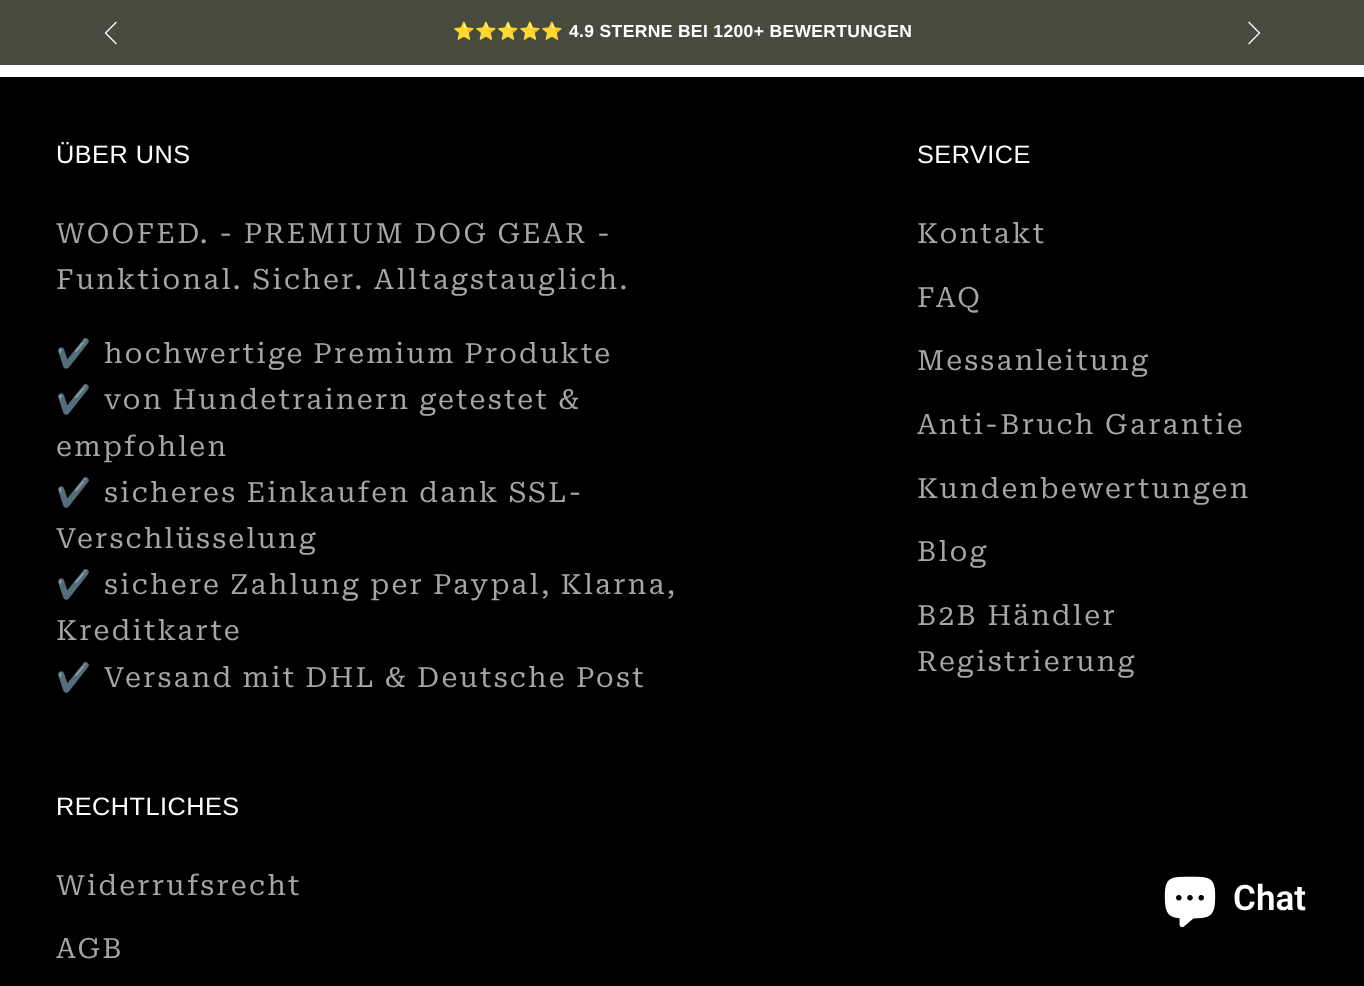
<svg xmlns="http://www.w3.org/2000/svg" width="1364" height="986">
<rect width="100%" height="100%" fill="#fff"/>
<rect width="1364" height="65" fill="#484c3e"/>
<path d="M116 22.5l-10.5 10.5l10.5 10.5" fill="none" stroke="#fff" stroke-width="1.3" stroke-linecap="square"/>
<text x="453" y="37" style="font-family:Noto Color Emoji;font-size:17.5px;font-weight:bold;letter-spacing:0.35px;fill:#fff">⭐⭐⭐⭐⭐</text>
<text x="569" y="37" style="font-family:Liberation Sans;font-size:17.5px;font-weight:bold;letter-spacing:0.35px;fill:#fff">4.9 STERNE BEI 1200+ BEWERTUNGEN</text>
<path d="M1249 43.5l10.5-10.5l-10.5-10.5" fill="none" stroke="#fff" stroke-width="1.3" stroke-linecap="square"/>
<rect y="77" width="1364" height="909" fill="#000"/>
<text x="56" y="163" style="font-family:Liberation Sans;font-size:25.25px;letter-spacing:0.5px;fill:#fff">ÜBER UNS</text>
<text x="56" y="243" style="font-family:Roboto Serif;font-size:28px;letter-spacing:2.25px;fill:#a6a6a6">WOOFED. - PREMIUM DOG GEAR -</text>
<text x="56" y="289" style="font-family:Roboto Serif;font-size:28px;letter-spacing:2.25px;fill:#a6a6a6">Funktional. Sicher. Alltagstauglich.</text>
<text x="56" y="363" style="font-family:Noto Color Emoji;font-size:28px;letter-spacing:2.25px;fill:#a6a6a6">✔️</text>
<text x="104" y="363" word-spacing="-1" style="font-family:Roboto Serif;font-size:28px;letter-spacing:2.25px;fill:#a6a6a6">hochwertige Premium Produkte</text>
<text x="56" y="409" style="font-family:Noto Color Emoji;font-size:28px;letter-spacing:2.25px;fill:#a6a6a6">✔️</text>
<text x="104" y="409" word-spacing="-0.5" style="font-family:Roboto Serif;font-size:28px;letter-spacing:2.25px;fill:#a6a6a6">von Hundetrainern getestet &amp;</text>
<text x="56" y="456" style="font-family:Roboto Serif;font-size:28px;letter-spacing:2.25px;fill:#a6a6a6">empfohlen</text>
<text x="56" y="502" style="font-family:Noto Color Emoji;font-size:28px;letter-spacing:2.25px;fill:#a6a6a6">✔️</text>
<text x="104" y="502" word-spacing="-0.5" style="font-family:Roboto Serif;font-size:28px;letter-spacing:2.25px;fill:#a6a6a6">sicheres Einkaufen dank SSL-</text>
<text x="56" y="548" style="font-family:Roboto Serif;font-size:28px;letter-spacing:2.25px;fill:#a6a6a6">Verschlüsselung</text>
<text x="56" y="594" style="font-family:Noto Color Emoji;font-size:28px;letter-spacing:2.25px;fill:#a6a6a6">✔️</text>
<text x="104" y="594" word-spacing="-0.5" style="font-family:Roboto Serif;font-size:28px;letter-spacing:2.25px;fill:#a6a6a6">sichere Zahlung per Paypal, Klarna,</text>
<text x="56" y="640" style="font-family:Roboto Serif;font-size:28px;letter-spacing:2.25px;fill:#a6a6a6">Kreditkarte</text>
<text x="56" y="687" style="font-family:Noto Color Emoji;font-size:28px;letter-spacing:2.25px;fill:#a6a6a6">✔️</text>
<text x="104" y="687" word-spacing="-0.5" style="font-family:Roboto Serif;font-size:28px;letter-spacing:2.25px;fill:#a6a6a6">Versand mit DHL &amp; Deutsche Post</text>
<text x="917" y="163" style="font-family:Liberation Sans;font-size:25.25px;letter-spacing:0.5px;fill:#fff">SERVICE</text>
<text x="917" y="243" style="font-family:Roboto Serif;font-size:28px;letter-spacing:2.25px;fill:#a6a6a6">Kontakt</text>
<text x="917" y="307" style="font-family:Roboto Serif;font-size:28px;letter-spacing:2.25px;fill:#a6a6a6">FAQ</text>
<text x="917" y="370" style="font-family:Roboto Serif;font-size:28px;letter-spacing:2.25px;fill:#a6a6a6">Messanleitung</text>
<text x="917" y="434" style="font-family:Roboto Serif;font-size:28px;letter-spacing:2.25px;fill:#a6a6a6">Anti-Bruch Garantie</text>
<text x="917" y="498" style="font-family:Roboto Serif;font-size:28px;letter-spacing:2.25px;fill:#a6a6a6">Kundenbewertungen</text>
<text x="917" y="561" style="font-family:Roboto Serif;font-size:28px;letter-spacing:2.25px;fill:#a6a6a6">Blog</text>
<text x="917" y="625" style="font-family:Roboto Serif;font-size:28px;letter-spacing:2.25px;fill:#a6a6a6">B2B Händler</text>
<text x="917" y="671" style="font-family:Roboto Serif;font-size:28px;letter-spacing:2.25px;fill:#a6a6a6">Registrierung</text>
<text x="56" y="815" style="font-family:Liberation Sans;font-size:25.25px;letter-spacing:0.5px;fill:#fff">RECHTLICHES</text>
<text x="56" y="895" style="font-family:Roboto Serif;font-size:28px;letter-spacing:2.25px;fill:#a6a6a6">Widerrufsrecht</text>
<text x="56" y="958" style="font-family:Roboto Serif;font-size:28px;letter-spacing:2.25px;fill:#a6a6a6">AGB</text>
<image x="1164" y="876" width="52" height="52" href="media/1.png"/>
<text x="1233" y="910" style="font-family:Roboto;font-size:35px;font-weight:600;fill:#fff">Chat</text>
</svg>
